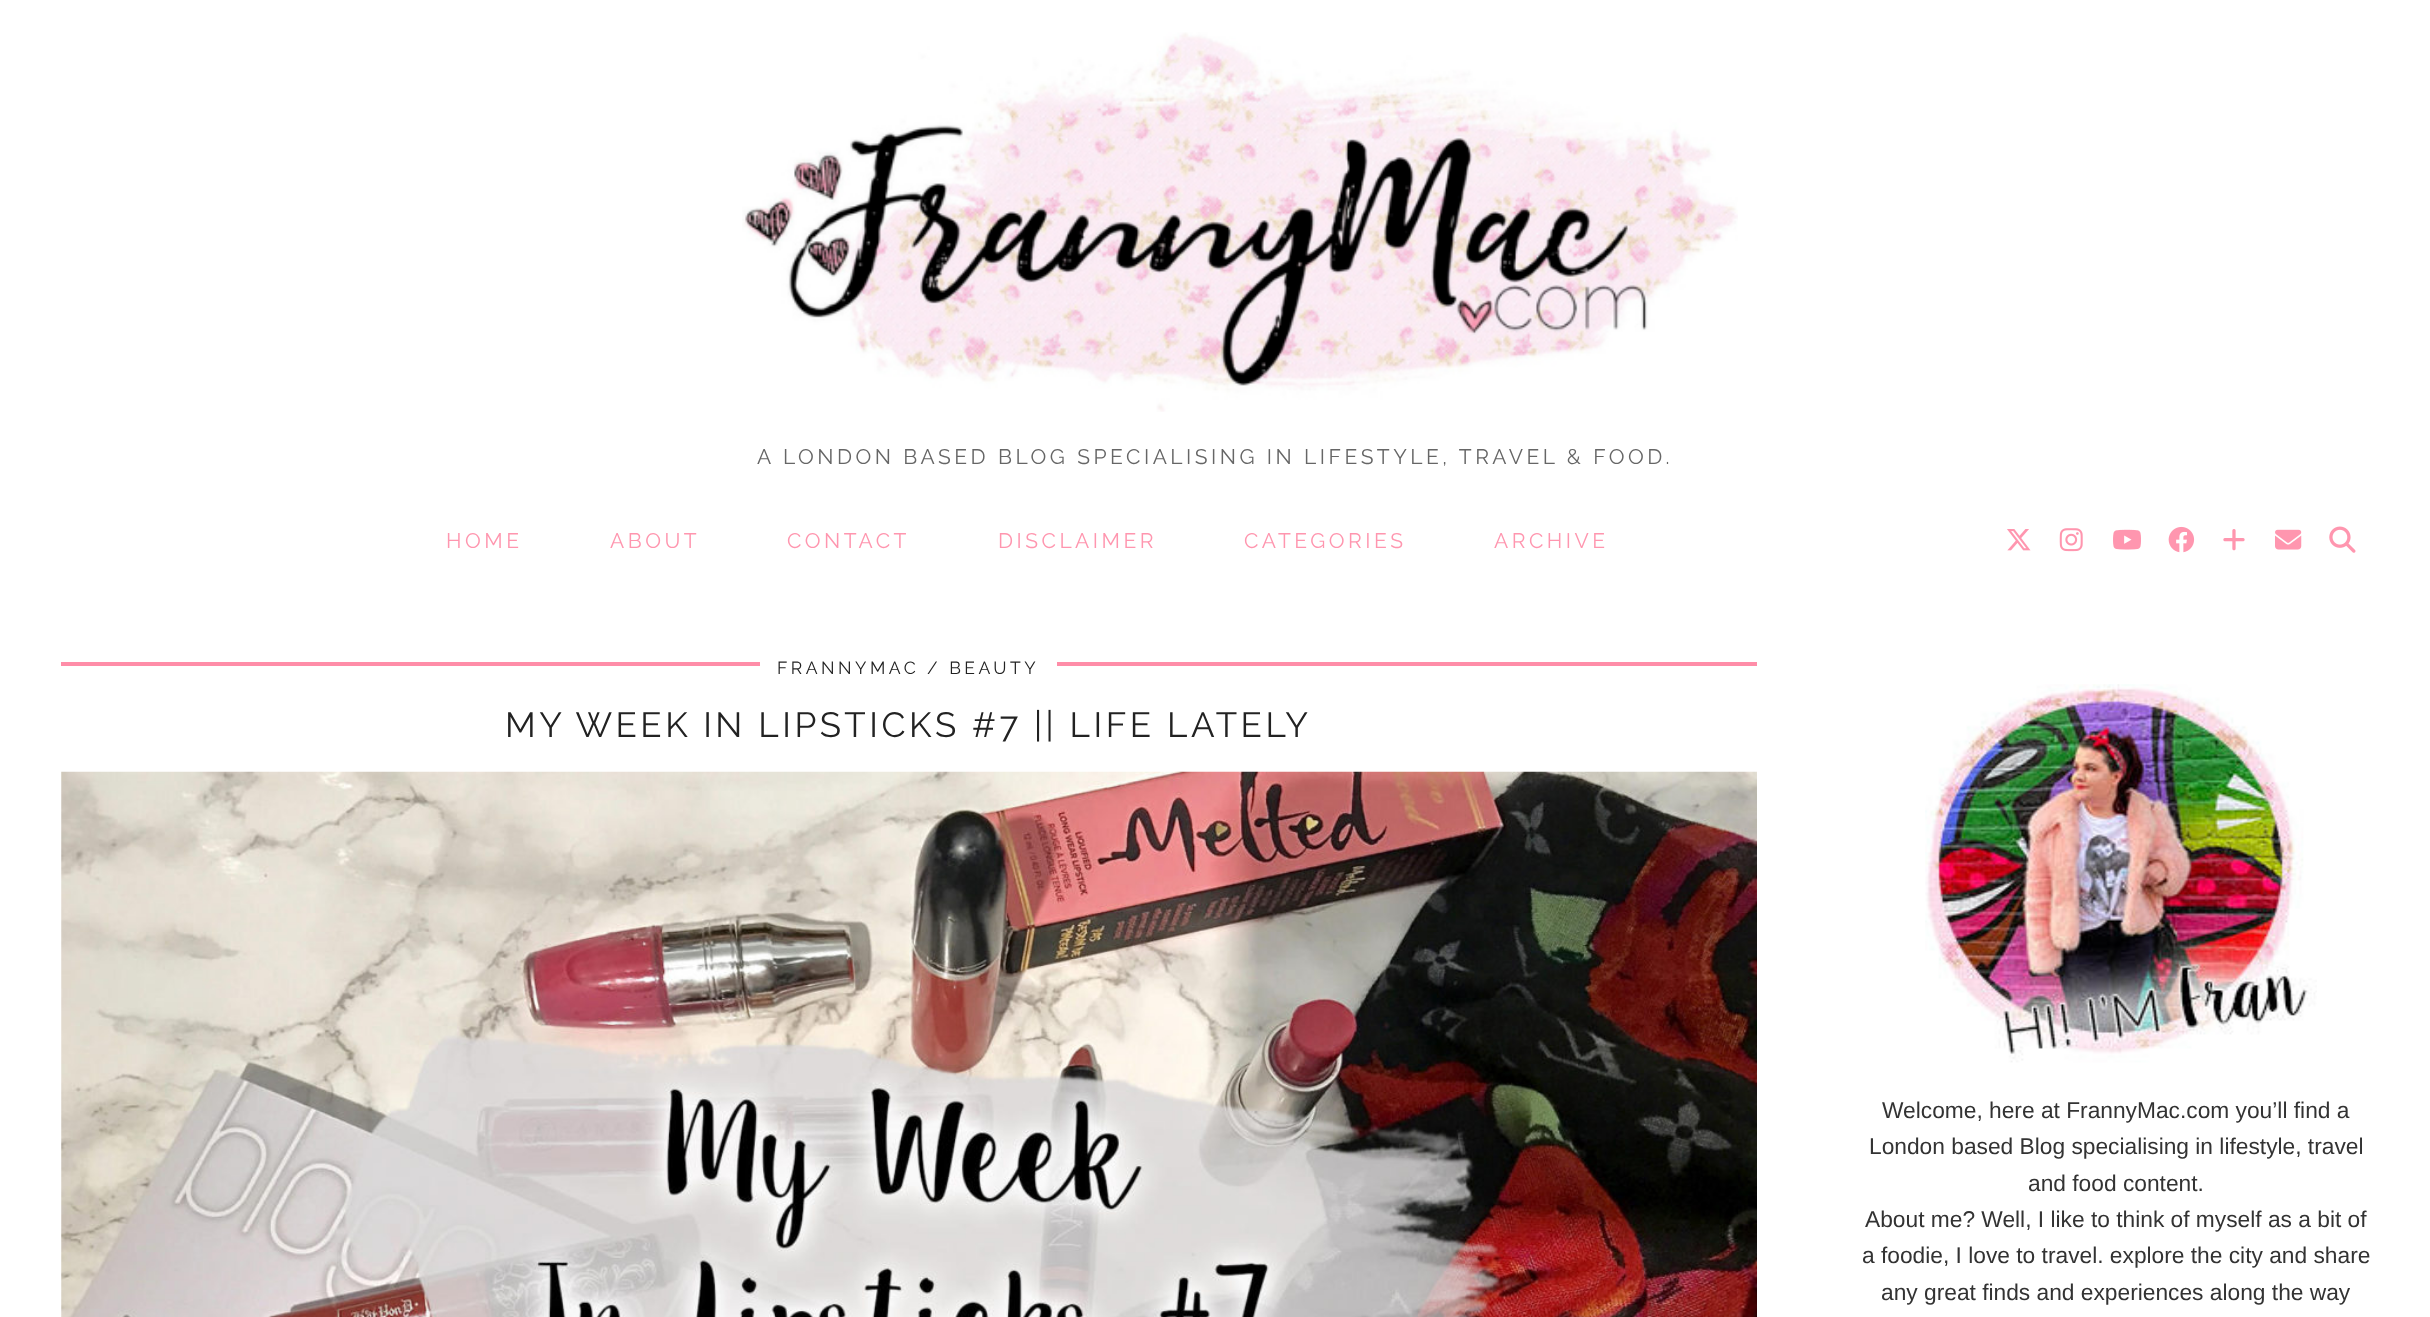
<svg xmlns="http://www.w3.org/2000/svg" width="2430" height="1317">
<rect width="100%" height="100%" fill="#fff"/>
<image x="742" y="32" width="996" height="380" href="media/1.png"/>
<text x="757" y="464" style="font-family:Raleway;font-size:21px;font-weight:100;letter-spacing:3.5px;fill:#666">A LONDON BASED BLOG SPECIALISING IN LIFESTYLE, TRAVEL &amp; FOOD.</text>
<text x="446" y="548" style="font-family:Raleway;font-size:21px;font-weight:100;letter-spacing:3.5px;fill:#ff96af">HOME</text>
<text x="610" y="548" style="font-family:Raleway;font-size:21px;font-weight:100;letter-spacing:3.5px;fill:#ff96af">ABOUT</text>
<text x="787" y="548" style="font-family:Raleway;font-size:21px;font-weight:100;letter-spacing:3.5px;fill:#ff96af">CONTACT</text>
<text x="998" y="548" style="font-family:Raleway;font-size:21px;font-weight:100;letter-spacing:3.5px;fill:#ff96af">DISCLAIMER</text>
<text x="1244" y="548" style="font-family:Raleway;font-size:21px;font-weight:100;letter-spacing:3.5px;fill:#ff96af">CATEGORIES</text>
<text x="1494" y="548" style="font-family:Raleway;font-size:21px;font-weight:100;letter-spacing:3.5px;fill:#ff96af">ARCHIVE</text>
<image x="2007" y="529" width="24" height="22" href="media/2.png"/>
<image x="2059" y="528" width="24" height="24" href="media/3.png"/>
<image x="2113" y="529" width="28" height="21" href="media/4.png"/>
<image x="2168" y="526" width="27" height="27" href="media/5.png"/>
<image x="2223" y="529" width="22" height="22" href="media/6.png"/>
<image x="2275" y="529" width="27" height="21" href="media/7.png"/>
<image x="2329" y="526" width="27" height="27" href="media/8.png"/>
<rect x="61" y="662" width="1696" height="4" fill="#ff8da8"/>
<rect x="760" y="662" width="297" height="4" fill="#fff"/>
<text x="777" y="674" style="font-family:Raleway;font-size:17.5px;font-weight:100;letter-spacing:3.5px;fill:#222">FRANNYMAC / BEAUTY</text>
<text x="505" y="737" style="font-family:Raleway;font-size:35px;font-weight:100;letter-spacing:3.5px;fill:#222">MY WEEK IN LIPSTICKS #7 || LIFE LATELY</text>
<image x="61" y="771" width="1696" height="546" href="media/9.png"/>
<image x="1925" y="684" width="392" height="379" href="media/10.png"/>
<text x="1882" y="1118" style="font-family:Liberation Sans;font-size:22.75px;fill:#333">Welcome, here at FrannyMac.com you’ll find a</text>
<text x="1869" y="1154" style="font-family:Liberation Sans;font-size:22.75px;fill:#333">London based Blog specialising in lifestyle, travel</text>
<text x="2028" y="1191" style="font-family:Liberation Sans;font-size:22.75px;fill:#333">and food content.</text>
<text x="1865" y="1227" style="font-family:Liberation Sans;font-size:22.75px;fill:#333">About me? Well, I like to think of myself as a bit of</text>
<text x="1862" y="1263" style="font-family:Liberation Sans;font-size:22.75px;fill:#333">a foodie, I love to travel. explore the city and share</text>
<text x="1881" y="1300" style="font-family:Liberation Sans;font-size:22.75px;fill:#333">any great finds and experiences along the way</text>
</svg>
